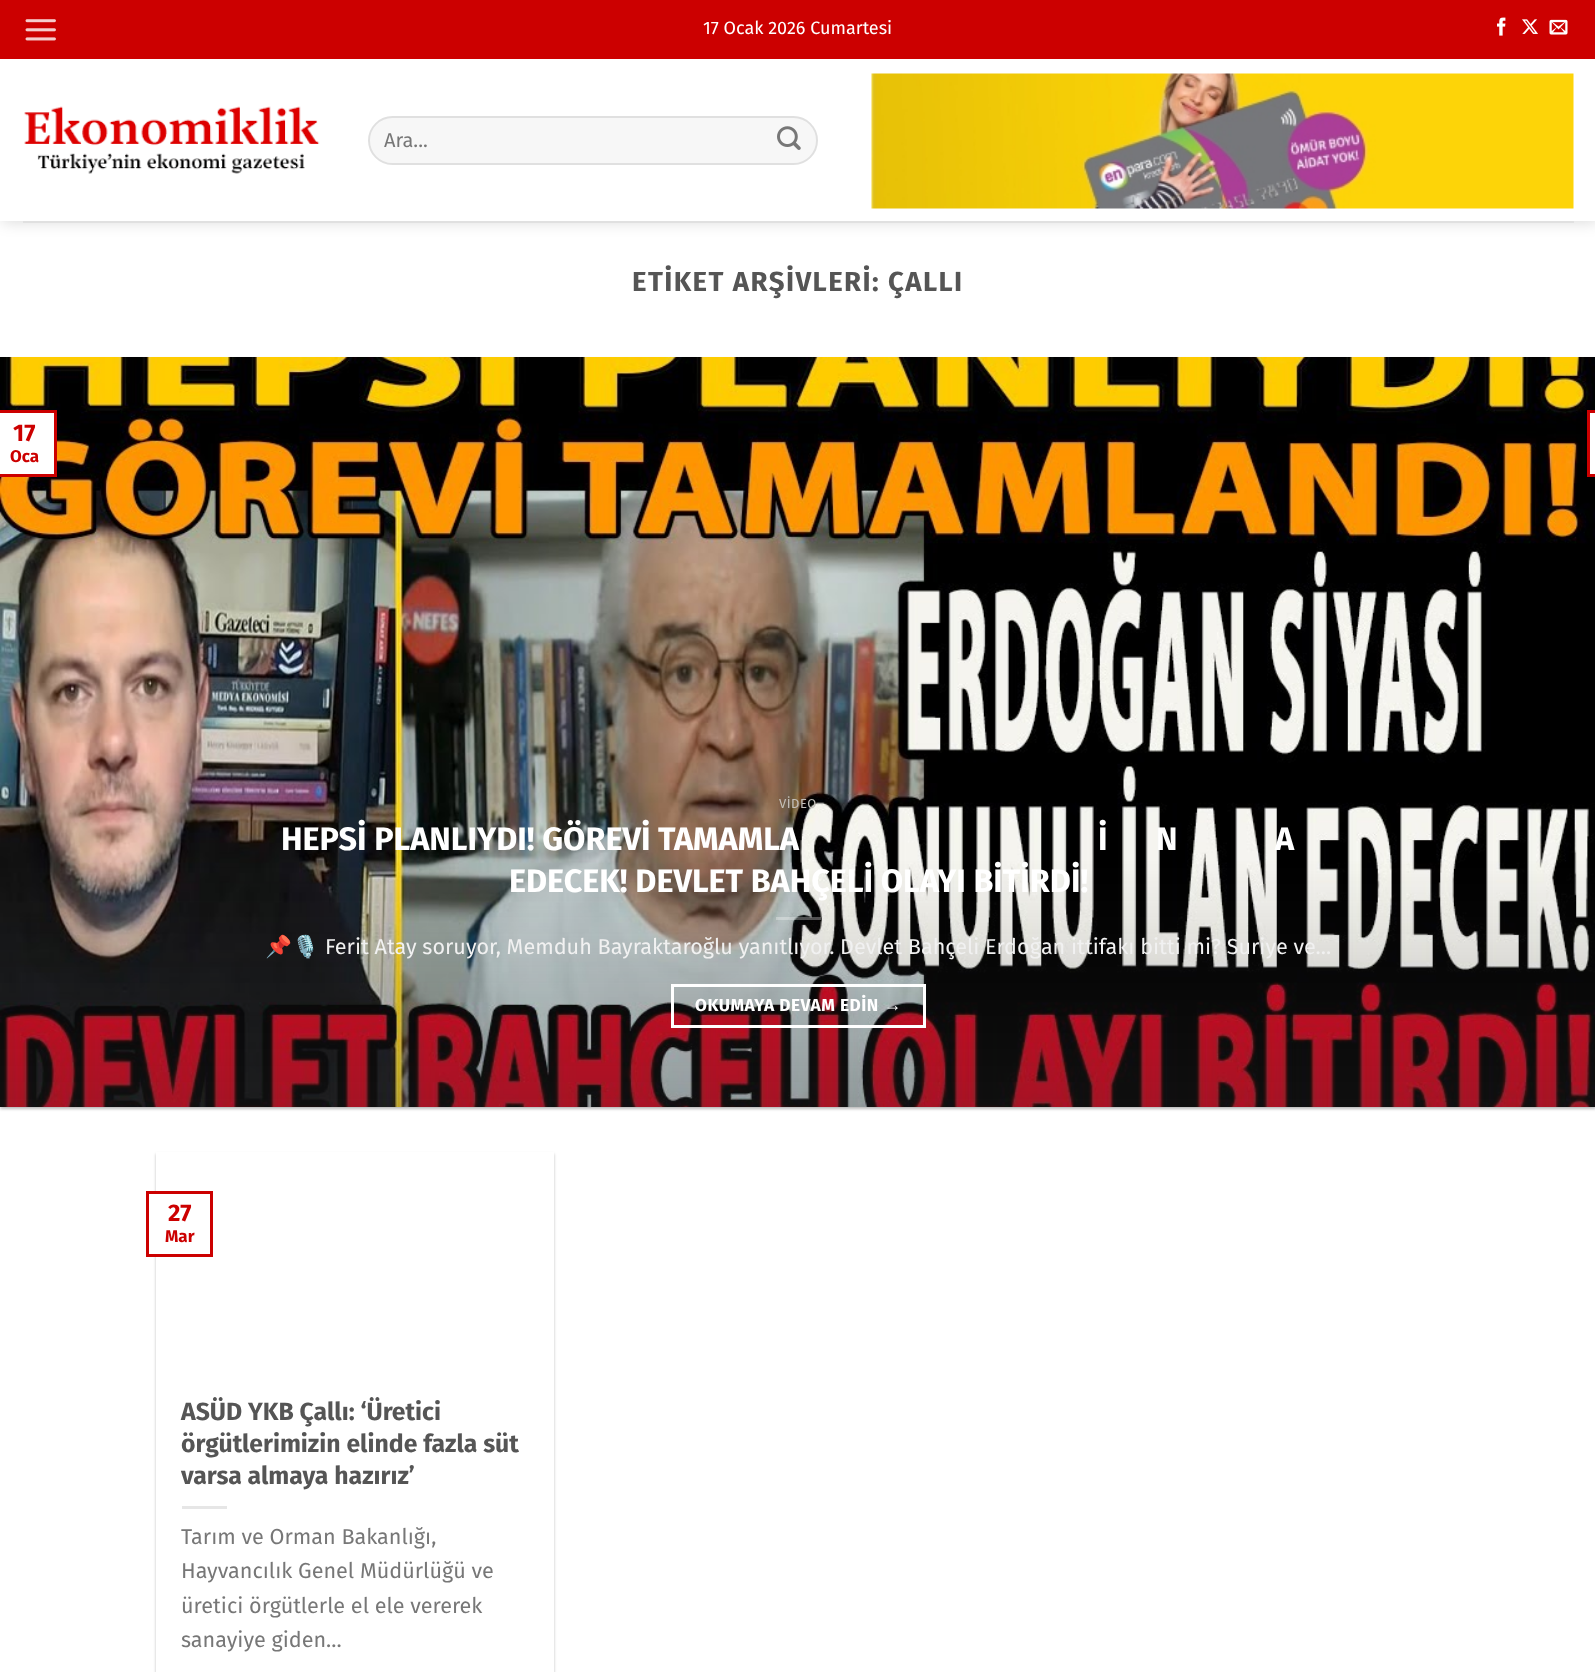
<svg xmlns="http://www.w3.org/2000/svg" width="1595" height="1672">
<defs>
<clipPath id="clip1"><path d="M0 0h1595v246h-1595zm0 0h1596v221h-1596z" clip-rule="evenodd"/></clipPath>
</defs>
<rect width="100%" height="100%" fill="#fff"/>
<g clip-path="url(#clip1)">
<rect x="2" y="2" width="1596" height="220" fill="#00000026" filter="blur(7.5px)"/>
</g>
<rect width="1595" height="59" fill="#c00"/>
<image x="25" y="19" width="31" height="22" href="media/1.png"/>
<text x="703" y="34" style="font-family:Fira Sans;font-size:18px;fill:#fff">17 Ocak 2026 Cumartesi</text>
<image x="1497" y="17" width="9" height="19" href="media/2.png"/>
<image x="1522" y="19" width="16" height="15" href="media/3.png"/>
<image x="1549" y="19" width="19" height="16" href="media/4.png"/>
<image x="24" y="106" width="296" height="68" href="media/5.png"/>
<rect x="368" y="116" width="450" height="49" rx="24.5" fill="#f7f7f7"/>
<rect x="369" y="117" width="448" height="47" rx="23.5" fill="none" stroke="#00000017" stroke-width="2"/>
<text x="384" y="147" style="font-family:Fira Sans;font-size:20px;fill:#777">Ara...</text>
<image x="777" y="126" width="24" height="24" href="media/6.png"/>
<image x="871" y="73" width="703" height="136" href="media/7.png"/>
<rect x="23" y="221" width="1551" height="2" fill="#e0e0e0"/>
<rect y="220" width="1595" height="1" fill="#ffffffe6"/>
<text x="632" y="291" style="font-family:Fira Sans;font-size:27.6px;font-weight:bold;letter-spacing:1.4px;fill:#555">ETİKET ARŞİVLERİ: ÇALLI</text>
<rect y="359" width="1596" height="750" fill="#0000003d" filter="blur(1.5px)"/>
<rect x="3" y="362" width="1590" height="744" fill="#0000001f" filter="blur(2px)"/>
<image x="0" y="357" width="1595" height="750" href="media/8.png"/>
<rect x="-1.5" y="411.5" width="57" height="64" fill="#fff" stroke="#c00" stroke-width="3"/>
<text x="13" y="441" style="font-family:Fira Sans;font-size:24px;font-weight:bold;fill:#c00">17</text>
<text x="10" y="462" style="font-family:Fira Sans;font-size:17px;font-weight:bold;fill:#c00">Oca</text>
<text x="779" y="808" style="font-family:Fira Sans;font-size:13px;letter-spacing:0.5px;fill:#c4c0bb">VİDEO</text>
<text x="281" y="850" style="font-family:Fira Sans;font-size:32.4px;font-weight:bold;fill:#fff">HEPSİ PLANLIYDI! GÖREVİ TAMAMLA</text>
<text x="1098" y="850" style="font-family:Fira Sans;font-size:32.4px;font-weight:bold;fill:#fff">İ</text>
<text x="1156" y="850" style="font-family:Fira Sans;font-size:32.4px;font-weight:bold;fill:#fff">N</text>
<text x="1275" y="850" style="font-family:Fira Sans;font-size:32.4px;font-weight:bold;fill:#fff">A</text>
<text x="509" y="892" style="font-family:Fira Sans;font-size:32.4px;font-weight:bold;fill:#fff">EDECEK! DEVLET BAHÇELİ OLAYI BİTİRDİ!</text>
<rect x="776" y="917" width="45" height="3" fill="#ffffff4d"/>
<text x="265" y="954" style="font-family:Noto Color Emoji;font-size:21.6px;fill:#f1f1f1">📌🎙️</text>
<text x="325" y="954" style="font-family:Fira Sans;font-size:21.6px;fill:#f1f1f1">Ferit Atay soruyor, Memduh Bayraktaroğlu yanıtlıyor. Devlet Bahçeli Erdoğan ittifakı bitti mi? Suriye ve...</text>
<rect x="672.5" y="985.5" width="252" height="41" fill="none" stroke="#fff" stroke-width="3"/>
<text x="695" y="1011" style="font-family:Fira Sans;font-size:17.25px;font-weight:bold;letter-spacing:0.5px;fill:#fff">OKUMAYA DEVAM EDİN</text>
<text x="884" y="1011" style="font-family:Liberation Sans;font-size:17.25px;font-weight:bold;letter-spacing:0.5px;fill:#fff">→</text>
<rect x="1588.5" y="411.5" width="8" height="64" fill="#fff" stroke="#c00" stroke-width="3"/>
<rect x="156" y="1154" width="398" height="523" fill="#0000003d" filter="blur(1.5px)"/>
<rect x="156" y="1152" width="398" height="520" fill="#fff"/>
<rect x="153" y="1194" width="3" height="60" fill="#fff"/>
<rect x="147.5" y="1192.5" width="64" height="63" fill="none" stroke="#c00" stroke-width="3"/>
<text x="168" y="1221" style="font-family:Fira Sans;font-size:24px;font-weight:bold;fill:#c00">27</text>
<text x="165" y="1242" style="font-family:Fira Sans;font-size:17px;font-weight:bold;fill:#c00">Mar</text>
<text x="181" y="1420" style="font-family:Fira Sans;font-size:24.8px;font-weight:bold;fill:#555">ASÜD YKB Çallı: ‘Üretici</text>
<text x="181" y="1452" style="font-family:Fira Sans;font-size:24.8px;font-weight:bold;fill:#555">örgütlerimizin elinde fazla süt</text>
<text x="181" y="1484" style="font-family:Fira Sans;font-size:24.8px;font-weight:bold;fill:#555">varsa almaya hazırız’</text>
<rect x="182" y="1506" width="45" height="3" fill="#e6e6e6"/>
<text x="181" y="1544" style="font-family:Fira Sans;font-size:21.6px;fill:#777">Tarım ve Orman Bakanlığı,</text>
<text x="181" y="1578" style="font-family:Fira Sans;font-size:21.6px;fill:#777">Hayvancılık Genel Müdürlüğü ve</text>
<text x="181" y="1613" style="font-family:Fira Sans;font-size:21.6px;fill:#777">üretici örgütlerle el ele vererek</text>
<text x="181" y="1647" style="font-family:Fira Sans;font-size:21.6px;fill:#777">sanayiye giden...</text>
</svg>
